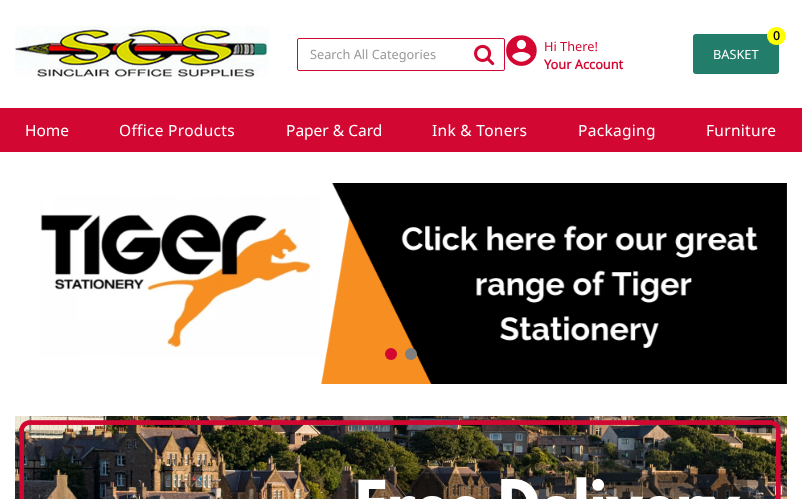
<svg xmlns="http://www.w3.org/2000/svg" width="802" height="499">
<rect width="100%" height="100%" fill="#fff"/>
<image x="15" y="26" width="254" height="51" href="media/1.png"/>
<rect x="297.5" y="38.5" width="207" height="32" rx="1.5" fill="none" stroke="#d20833"/>
<text x="310" y="59" style="font-family:Noto Sans;font-size:12.75px;fill:#999">Search All Categories</text>
<image x="474" y="44" width="21" height="22" href="media/2.png"/>
<image x="506" y="35" width="31" height="31" href="media/3.png"/>
<text x="544" y="51" style="font-family:Noto Sans;font-size:12.75px;fill:#d20833">Hi There!</text>
<text x="544" y="69" style="font-family:Noto Sans;font-size:12.75px;font-weight:bold;fill:#d20833">Your Account</text>
<rect x="693" y="34" width="86" height="40" rx="3" fill="#227d6a"/>
<rect x="767" y="27" width="19" height="18" rx="9" fill="#ff0"/>
<text x="773" y="40" style="font-family:Noto Sans;font-size:12px;font-weight:bold;fill:#000">0</text>
<text x="713" y="59" style="font-family:Noto Sans;font-size:12.75px;fill:#fff">BASKET</text>
<rect y="108" width="802" height="44" fill="#d20833"/>
<text x="25" y="136" style="font-family:Noto Sans;font-size:15.5px;fill:#fff">Home</text>
<text x="119" y="136" style="font-family:Noto Sans;font-size:15.5px;letter-spacing:0.3px;fill:#fff">Office Products</text>
<text x="286" y="136" style="font-family:Noto Sans;font-size:15.5px;fill:#fff">Paper &amp; Card</text>
<text x="432" y="136" style="font-family:Noto Sans;font-size:15.5px;letter-spacing:0.3px;fill:#fff">Ink &amp; Toners</text>
<text x="578" y="136" style="font-family:Noto Sans;font-size:15.5px;letter-spacing:0.3px;fill:#fff">Packaging</text>
<text x="706" y="136" style="font-family:Noto Sans;font-size:15.5px;letter-spacing:0.3px;fill:#fff">Furniture</text>
<image x="40" y="183" width="747" height="201" href="media/4.png"/>
<circle cx="391" cy="354" r="6" fill="#d20833"/>
<circle cx="411" cy="354" r="6" fill="#808080"/>
<image x="15" y="416" width="772" height="83" href="media/5.png"/>
</svg>
